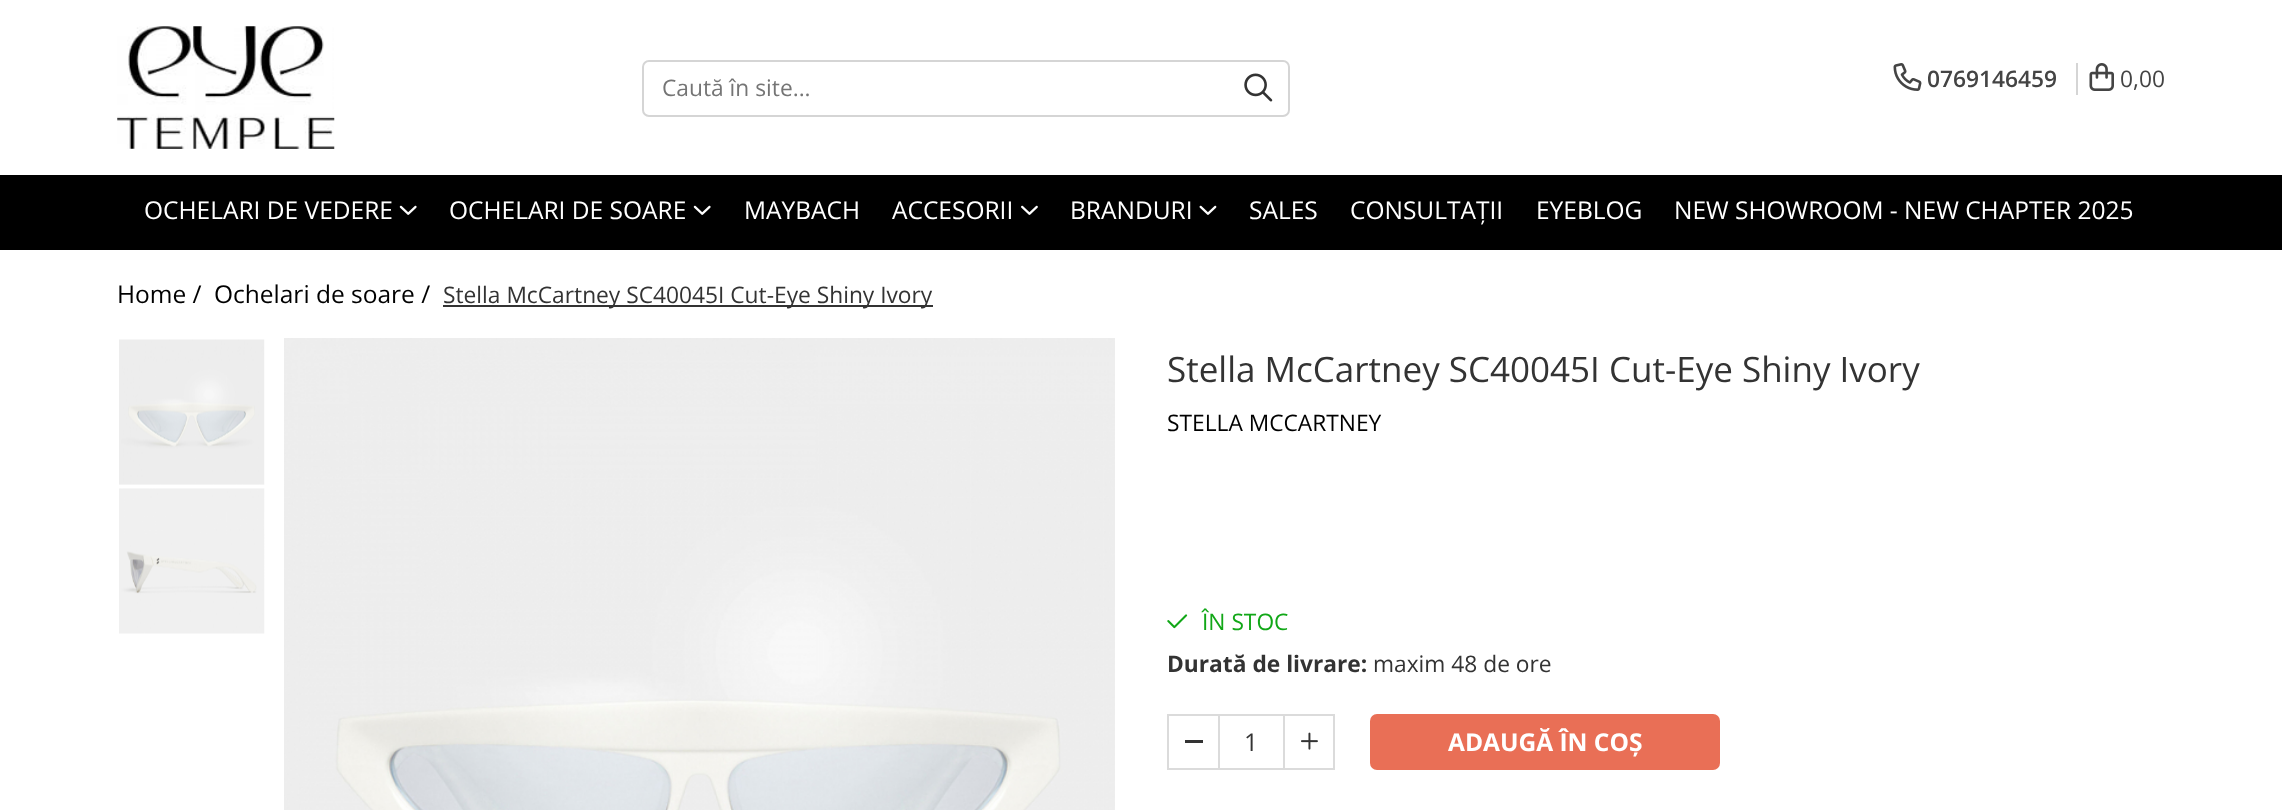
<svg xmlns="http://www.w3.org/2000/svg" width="2282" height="810">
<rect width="100%" height="100%" fill="#fff"/>
<image x="117" y="26" width="218" height="123" href="media/1.png"/>
<rect x="643" y="61" width="646" height="55" rx="6" fill="none" stroke="#d5d5d5" stroke-width="2"/>
<text x="662" y="96" style="font-family:Open Sans;font-size:22.75px;fill:#757575">Caută în site...</text>
<image x="1244" y="73" width="29" height="29" href="media/2.png"/>
<image x="1893" y="63" width="29" height="28" href="media/3.png"/>
<text x="1927" y="87" style="font-family:Open Sans;font-size:22.75px;font-weight:600;fill:#444">0769146459</text>
<rect x="2076" y="63" width="2" height="32" fill="#d5d5d5"/>
<image x="2089" y="63" width="25" height="28" href="media/4.png"/>
<text x="2120" y="87" style="font-family:Open Sans;font-size:22.75px;fill:#444">0,00</text>
<rect y="175" width="2282" height="75" fill="#000"/>
<text x="144" y="219" style="font-family:Open Sans;font-size:24.5px;fill:#fff">OCHELARI DE VEDERE</text>
<image x="399" y="205" width="18" height="10" href="media/5.png"/>
<text x="449" y="219" style="font-family:Open Sans;font-size:24.5px;fill:#fff">OCHELARI DE SOARE</text>
<image x="693" y="205" width="18" height="10" href="media/5.png"/>
<text x="744" y="219" style="font-family:Open Sans;font-size:24.5px;fill:#fff">MAYBACH</text>
<text x="892" y="219" style="font-family:Open Sans;font-size:24.5px;fill:#fff">ACCESORII</text>
<image x="1021" y="205" width="17" height="10" href="media/6.png"/>
<text x="1070" y="219" style="font-family:Open Sans;font-size:24.5px;fill:#fff">BRANDURI</text>
<image x="1199" y="205" width="18" height="10" href="media/7.png"/>
<text x="1249" y="219" style="font-family:Open Sans;font-size:24.5px;fill:#fff">SALES</text>
<text x="1350" y="219" style="font-family:Open Sans;font-size:24.5px;fill:#fff">CONSULTAȚII</text>
<text x="1536" y="219" style="font-family:Open Sans;font-size:24.5px;fill:#fff">EYEBLOG</text>
<text x="1674" y="219" style="font-family:Open Sans;font-size:24.5px;fill:#fff">NEW SHOWROOM - NEW CHAPTER 2025</text>
<text x="117" y="303" style="font-family:Open Sans;font-size:24.5px;fill:#000">Home /</text>
<text x="214" y="303" style="font-family:Open Sans;font-size:24.5px;fill:#000">Ochelari de soare /</text>
<rect x="443" y="305" width="490" height="2" fill="#333"/>
<text x="443" y="303" style="font-family:Open Sans;font-size:22.75px;fill:#333">Stella McCartney SC40045I Cut-Eye Shiny Ivory</text>
<image x="119" y="339" width="146" height="146" href="media/8.png"/>
<image x="119" y="488" width="146" height="146" href="media/9.png"/>
<image x="284" y="338" width="831" height="472" href="media/10.png"/>
<text x="1167" y="382" style="font-family:Open Sans;font-size:35px;fill:#333">Stella McCartney SC40045I Cut-Eye Shiny Ivory</text>
<text x="1167" y="431" style="font-family:Open Sans;font-size:22.75px;fill:#000">STELLA MCCARTNEY</text>
<image x="1167" y="614" width="21" height="15" href="media/11.png"/>
<text x="1202" y="630" style="font-family:Open Sans;font-size:22.75px;fill:#11a717">ÎN STOC</text>
<text x="1167" y="672" style="font-family:Open Sans;font-size:22.75px;font-weight:bold;fill:#333">Durată de livrare:</text>
<text x="1373" y="672" style="font-family:Open Sans;font-size:22.75px;fill:#333">maxim 48 de ore</text>
<rect x="1168" y="715" width="51" height="54" fill="none" stroke="#dbdbdb" stroke-width="2"/>
<rect x="1185" y="740" width="18" height="3" fill="#333"/>
<rect x="1220" y="714" width="63" height="2" fill="#dbdbdb"/>
<rect x="1220" y="768" width="63" height="2" fill="#dbdbdb"/>
<text x="1244" y="751" style="font-family:Open Sans;font-size:24.5px;fill:#333">1</text>
<rect x="1284" y="715" width="50" height="54" fill="none" stroke="#dbdbdb" stroke-width="2"/>
<image x="1301" y="732" width="17" height="18" href="media/12.png"/>
<rect x="1370" y="714" width="350" height="56" rx="7" fill="#e96f56"/>
<text x="1448" y="751" style="font-family:Open Sans;font-size:24.5px;font-weight:bold;fill:#fff">ADAUGĂ ÎN COȘ</text>
</svg>
